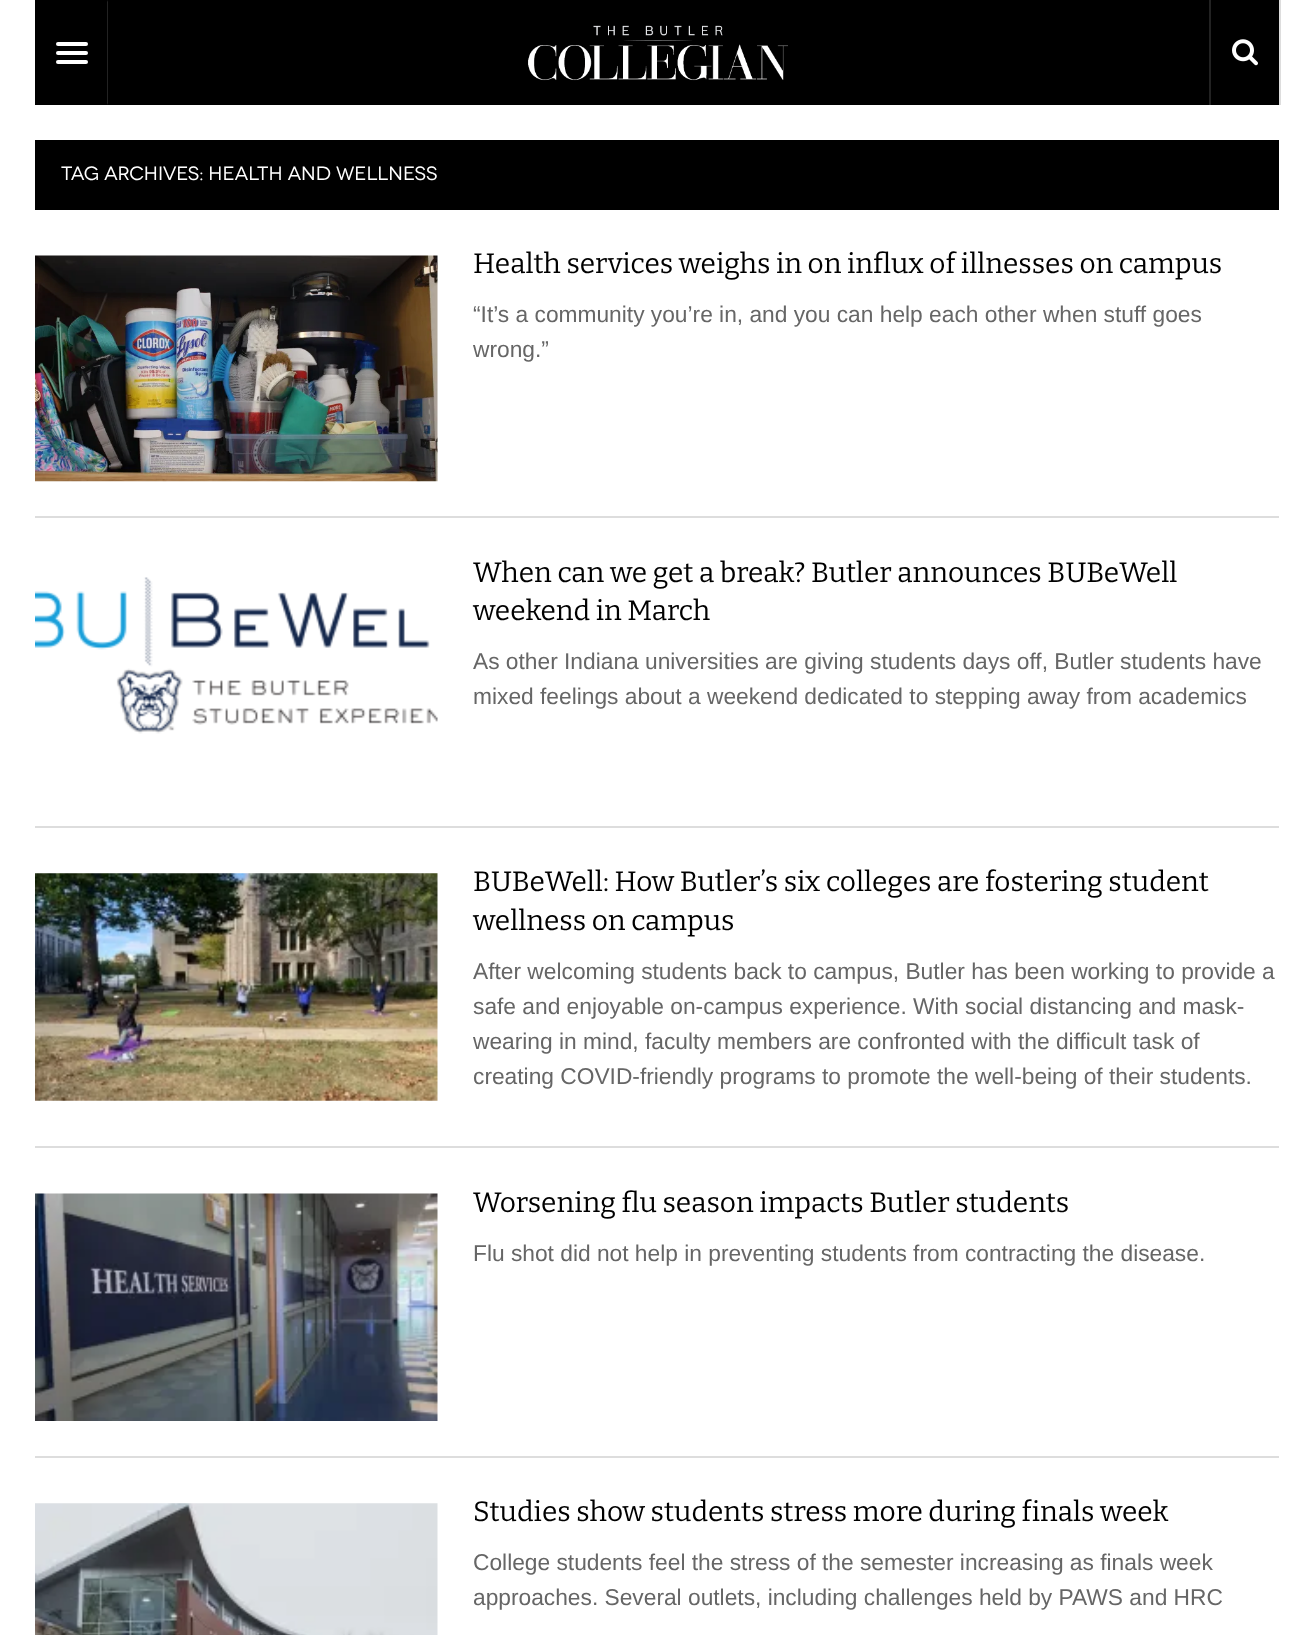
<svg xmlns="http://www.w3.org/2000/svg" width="1314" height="1635">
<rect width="100%" height="100%" fill="#fff"/>
<rect x="1279" width="2" height="105" fill="#ddd"/>
<rect x="35" width="1244" height="105" fill="#000"/>
<path d="M108 0v105l-1-2v-101z" fill="#222"/>
<rect x="56" y="42" width="32" height="4" rx="2" fill="#fff"/>
<rect x="56" y="51" width="32" height="4" rx="2" fill="#fff"/>
<rect x="56" y="60" width="32" height="4" rx="2" fill="#fff"/>
<image x="528" y="25" width="260" height="56" href="media/1.png"/>
<rect x="1209" width="2" height="105" fill="#222"/>
<image x="1232" y="39" width="26" height="27" href="media/2.png"/>
<rect x="35" y="140" width="1244" height="70" fill="#000"/>
<text x="61" y="180" style="font-family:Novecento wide;font-size:19.25px;fill:#fff">TAG ARCHIVES: HEALTH AND WELLNESS</text>
<rect x="35" y="516" width="1244" height="2" fill="#ddd"/>
<image x="35" y="255" width="403" height="227" href="media/3.png"/>
<text x="473" y="273" style="font-family:Bitter;font-size:28px;fill:#000">Health services weighs in on influx of illnesses on campus</text>
<text x="473" y="322" style="font-family:Liberation Sans;font-size:22.75px;fill:#666">“It’s a community you’re in, and you can help each other when stuff goes</text>
<text x="473" y="357" style="font-family:Liberation Sans;font-size:22.75px;fill:#666">wrong.”</text>
<rect x="35" y="826" width="1244" height="2" fill="#ddd"/>
<image x="35" y="577" width="403" height="157" href="media/4.png"/>
<text x="473" y="582" style="font-family:Bitter;font-size:28px;fill:#000">When can we get a break? Butler announces BUBeWell</text>
<text x="473" y="620" style="font-family:Bitter;font-size:28px;fill:#000">weekend in March</text>
<text x="473" y="669" style="font-family:Liberation Sans;font-size:22.75px;fill:#666">As other Indiana universities are giving students days off, Butler students have</text>
<text x="473" y="704" style="font-family:Liberation Sans;font-size:22.75px;fill:#666">mixed feelings about a weekend dedicated to stepping away from academics</text>
<rect x="35" y="1146" width="1244" height="2" fill="#ddd"/>
<image x="35" y="873" width="403" height="228" href="media/5.png"/>
<text x="473" y="891" style="font-family:Bitter;font-size:28px;fill:#000">BUBeWell: How Butler’s six colleges are fostering student</text>
<text x="473" y="930" style="font-family:Bitter;font-size:28px;fill:#000">wellness on campus</text>
<text x="473" y="979" style="font-family:Liberation Sans;font-size:22.75px;fill:#666">After welcoming students back to campus, Butler has been working to provide a</text>
<text x="473" y="1014" style="font-family:Liberation Sans;font-size:22.75px;fill:#666">safe and enjoyable on-campus experience. With social distancing and mask-</text>
<text x="473" y="1049" style="font-family:Liberation Sans;font-size:22.75px;fill:#666">wearing in mind, faculty members are confronted with the difficult task of</text>
<text x="473" y="1084" style="font-family:Liberation Sans;font-size:22.75px;fill:#666">creating COVID-friendly programs to promote the well-being of their students.</text>
<rect x="35" y="1456" width="1244" height="2" fill="#ddd"/>
<image x="35" y="1193" width="403" height="228" href="media/6.png"/>
<text x="473" y="1212" style="font-family:Bitter;font-size:28px;fill:#000">Worsening flu season impacts Butler students</text>
<text x="473" y="1261" style="font-family:Liberation Sans;font-size:22.75px;fill:#666">Flu shot did not help in preventing students from contracting the disease.</text>
<image x="35" y="1503" width="403" height="132" href="media/7.png"/>
<text x="473" y="1521" style="font-family:Bitter;font-size:28px;fill:#000">Studies show students stress more during finals week</text>
<text x="473" y="1570" style="font-family:Liberation Sans;font-size:22.75px;fill:#666">College students feel the stress of the semester increasing as finals week</text>
<text x="473" y="1605" style="font-family:Liberation Sans;font-size:22.75px;fill:#666">approaches. Several outlets, including challenges held by PAWS and HRC</text>
</svg>
